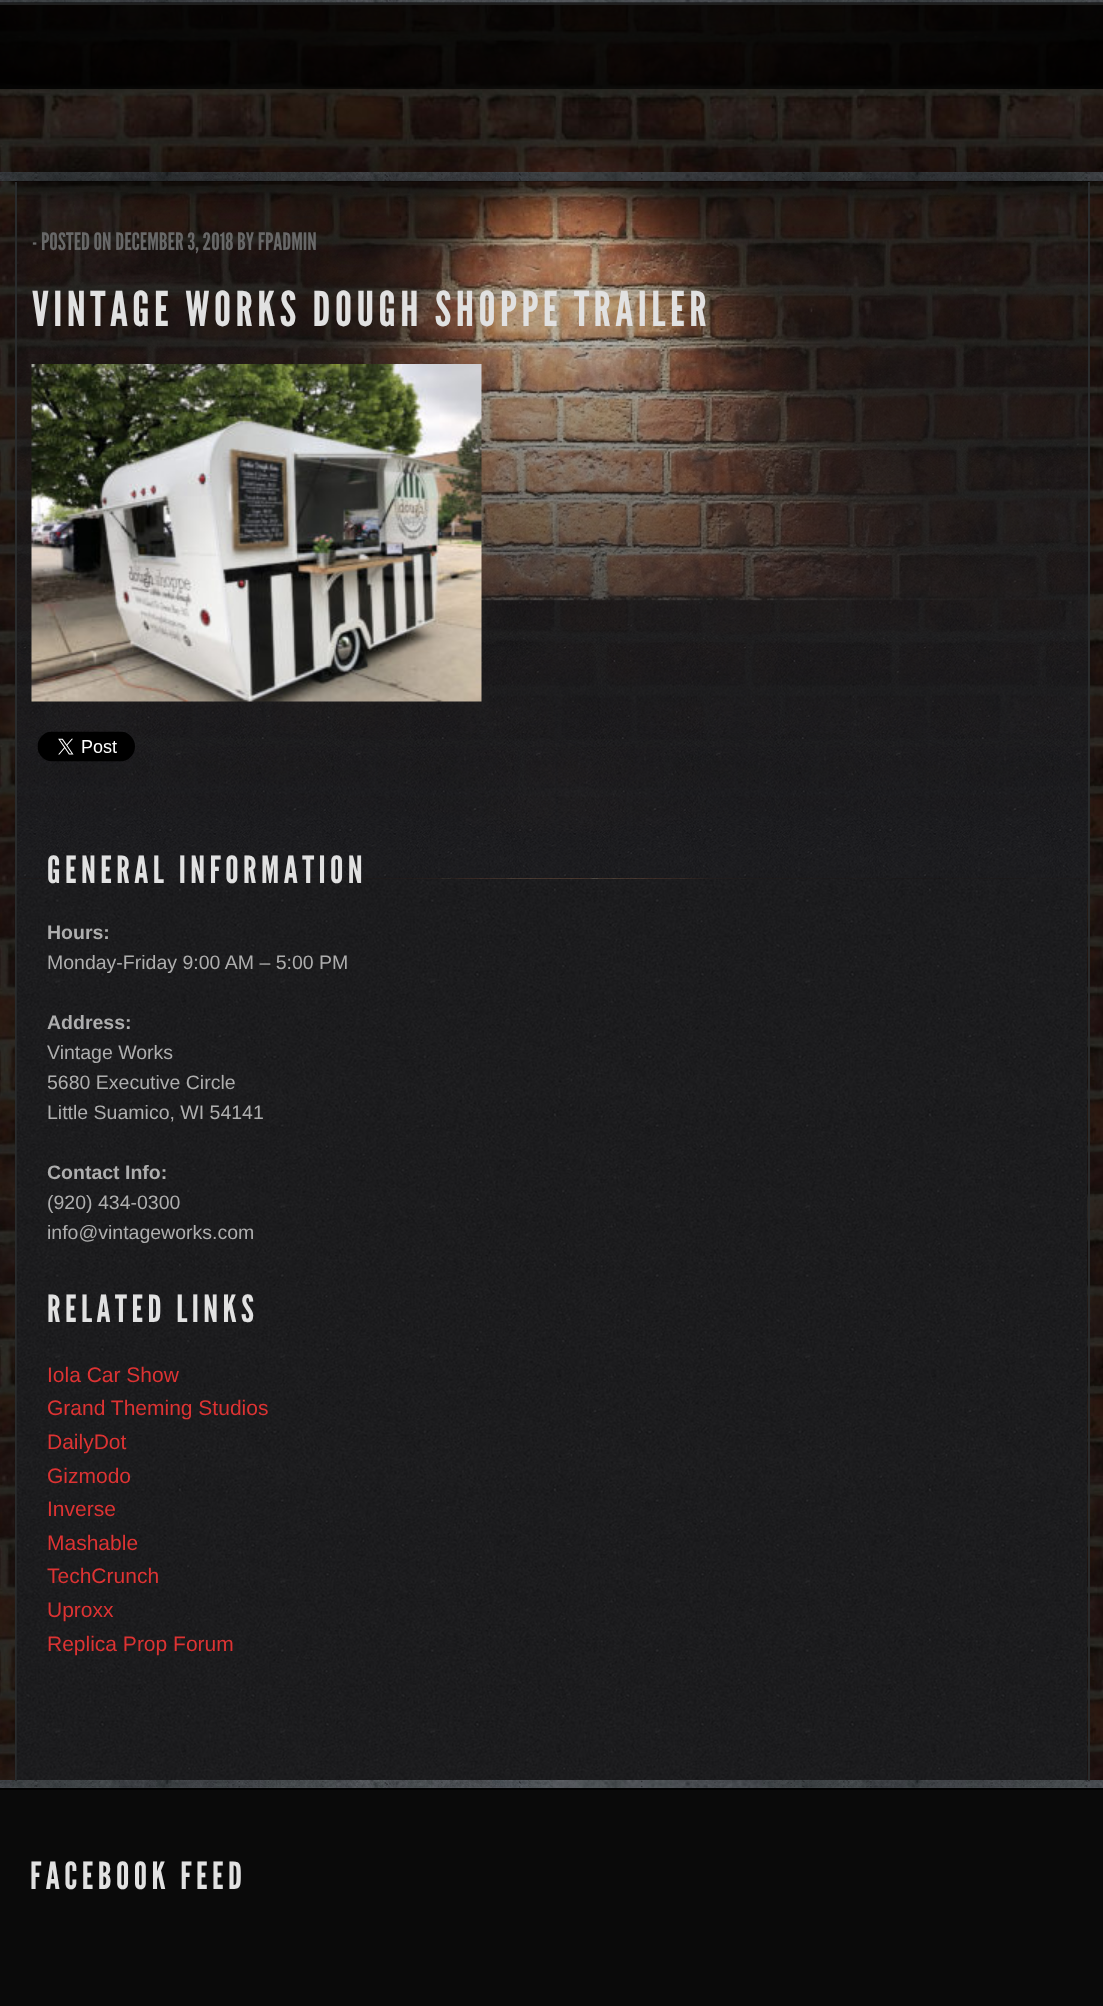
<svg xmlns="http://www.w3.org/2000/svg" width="1103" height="2006">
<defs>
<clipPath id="clip1"><rect x="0" y="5" width="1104" height="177"/></clipPath>
</defs>
<rect width="100%" height="100%" fill="#fff"/>
<image x="0" y="2" width="1103" height="1778" href="media/1.png"/>
<rect y="-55" width="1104" height="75" fill="#00000066" filter="blur(30px)"/>
<rect y="2" width="1103" height="1" fill="#000000bf"/>
<image x="273" y="2" width="543" height="1" href="media/2.png"/>
<rect y="3" width="1103" height="2" fill="#1f1f1f"/>
<image x="0" y="0" width="1103" height="3" href="media/3.png"/>
<image x="0" y="0" width="1103" height="3" href="media/4.png"/>
<image x="0" y="172" width="1103" height="9" href="media/5.png"/>
<image x="0" y="172" width="1103" height="9" href="media/6.png"/>
<image x="15" y="181" width="1074" height="698" href="media/7.png"/>
<image x="0" y="1780" width="1103" height="8" href="media/11.png"/>
<image x="0" y="1780" width="1103" height="8" href="media/12.png"/>
<rect x="1088" y="182" width="2" height="1599" fill="#292b2c"/>
<rect x="15" y="182" width="2" height="1599" fill="#292b2c"/>
<g clip-path="url(#clip1)">
<rect y="167" width="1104" height="75" fill="#00000066" filter="blur(30px)"/>
</g>
<text x="32" y="250" style="font-family:League Gothic;font-size:24px;fill:#686868">- POSTED ON DECEMBER 3, 2018 BY FPADMIN</text>
<text x="32" y="326" style="font-family:League Gothic;font-size:48px;letter-spacing:4.5px;fill:#e1e1e1">VINTAGE WORKS DOUGH SHOPPE TRAILER</text>
<image x="31" y="364" width="451" height="338" href="media/8.png"/>
<image x="37" y="731" width="98" height="31" href="media/9.png"/>
<image x="16" y="878" width="1072" height="902" href="media/10.png"/>
<text x="47" y="883" style="font-family:League Gothic;font-size:37.5px;letter-spacing:4.5px;fill:#e1e1e1">GENERAL INFORMATION</text>
<text x="47" y="939" style="font-family:Liberation Sans;font-size:19.5px;font-weight:bold;fill:#aeaeae">Hours:</text>
<text x="47" y="969" style="font-family:Liberation Sans;font-size:19.5px;fill:#aeaeae">Monday-Friday 9:00 AM – 5:00 PM</text>
<text x="47" y="1029" style="font-family:Liberation Sans;font-size:19.5px;font-weight:bold;fill:#aeaeae">Address:</text>
<text x="47" y="1059" style="font-family:Liberation Sans;font-size:19.5px;fill:#aeaeae">Vintage Works</text>
<text x="47" y="1089" style="font-family:Liberation Sans;font-size:19.5px;fill:#aeaeae">5680 Executive Circle</text>
<text x="47" y="1119" style="font-family:Liberation Sans;font-size:19.5px;fill:#aeaeae">Little Suamico, WI 54141</text>
<text x="47" y="1179" style="font-family:Liberation Sans;font-size:19.5px;font-weight:bold;fill:#aeaeae">Contact Info:</text>
<text x="47" y="1209" style="font-family:Liberation Sans;font-size:19.5px;fill:#aeaeae">(920) 434-0300</text>
<text x="47" y="1239" style="font-family:Liberation Sans;font-size:19.5px;fill:#aeaeae">info@vintageworks.com</text>
<text x="47" y="1322" style="font-family:League Gothic;font-size:37.5px;letter-spacing:4.5px;fill:#e1e1e1">RELATED LINKS</text>
<text x="47" y="1382" style="font-family:Liberation Sans;font-size:21px;fill:#d33">Iola Car Show</text>
<text x="47" y="1415" style="font-family:Liberation Sans;font-size:21px;fill:#d33">Grand Theming Studios</text>
<text x="47" y="1449" style="font-family:Liberation Sans;font-size:21px;fill:#d33">DailyDot</text>
<text x="47" y="1483" style="font-family:Liberation Sans;font-size:21px;fill:#d33">Gizmodo</text>
<text x="47" y="1516" style="font-family:Liberation Sans;font-size:21px;fill:#d33">Inverse</text>
<text x="47" y="1550" style="font-family:Liberation Sans;font-size:21px;fill:#d33">Mashable</text>
<text x="47" y="1583" style="font-family:Liberation Sans;font-size:21px;fill:#d33">TechCrunch</text>
<text x="47" y="1617" style="font-family:Liberation Sans;font-size:21px;fill:#d33">Uproxx</text>
<text x="47" y="1651" style="font-family:Liberation Sans;font-size:21px;fill:#d33">Replica Prop Forum</text>
<rect y="1788" width="1103" height="2" fill="#000"/>
<rect y="1790" width="1103" height="216" fill="#0a0a0a"/>
<text x="30" y="1889" style="font-family:League Gothic;font-size:37.5px;letter-spacing:4.5px;fill:#e1e1e1">FACEBOOK FEED</text>
</svg>
